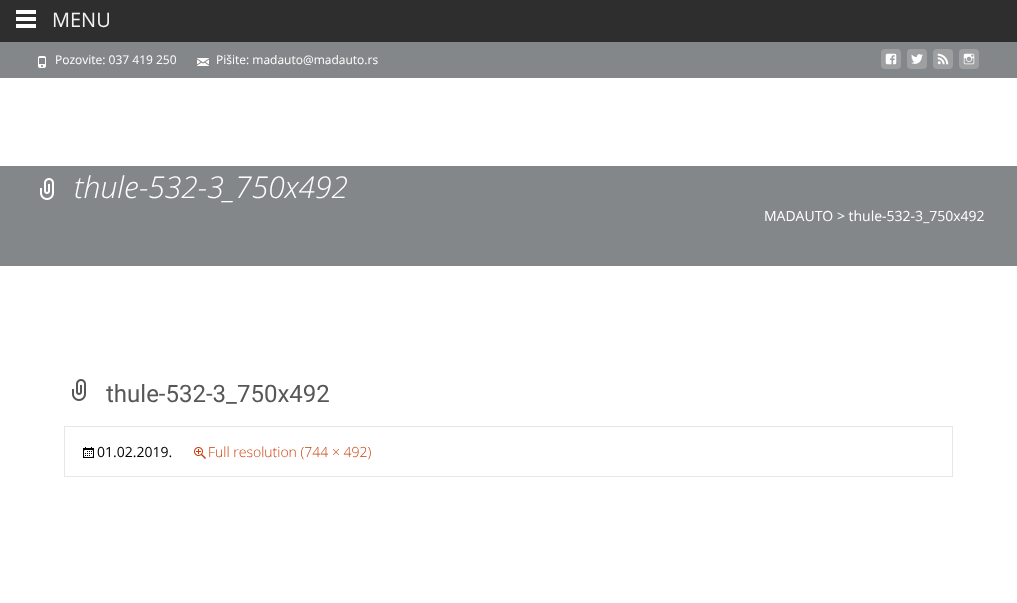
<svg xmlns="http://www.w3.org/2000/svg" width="1017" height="603">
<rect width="100%" height="100%" fill="#fff"/>
<rect width="1017" height="42" fill="#2e2e2e"/>
<rect x="16" y="10" width="20" height="4" fill="#fff"/>
<rect x="16" y="17" width="20" height="4" fill="#fff"/>
<rect x="16" y="24" width="20" height="4" fill="#fff"/>
<text x="52" y="27" style="font-family:Open Sans;font-size:20px;fill:#f2f2f2">MENU</text>
<rect y="42" width="1017" height="36" fill="#848789"/>
<image x="38" y="56" width="8" height="12" href="media/1.png"/>
<text x="55" y="64" style="font-family:Open Sans;font-size:12px;fill:#fff">Pozovite: 037 419 250</text>
<image x="197" y="58" width="12" height="8" href="media/2.png"/>
<text x="216" y="64" style="font-family:Open Sans;font-size:12px;fill:#fff">Pišite: madauto@madauto.rs</text>
<rect x="881" y="49" width="20" height="20" rx="4" fill="#9d9fa1"/>
<image x="885" y="53" width="12" height="12" href="media/3.png"/>
<rect x="907" y="49" width="20" height="20" rx="4" fill="#9d9fa1"/>
<image x="911" y="54" width="12" height="10" href="media/4.png"/>
<rect x="933" y="49" width="20" height="20" rx="4" fill="#9d9fa1"/>
<image x="937" y="53" width="12" height="12" href="media/5.png"/>
<rect x="959" y="49" width="20" height="20" rx="4" fill="#9d9fa1"/>
<image x="963" y="53" width="12" height="12" href="media/6.png"/>
<rect y="166" width="1017" height="100" fill="#848789"/>
<image x="40" y="178" width="14" height="22" href="media/7.png"/>
<text x="74" y="198" style="font-family:Open Sans;font-size:30px;font-weight:300;font-style:italic;fill:#fff">thule-532-3_750x492</text>
<text x="764" y="221" style="font-family:Open Sans;font-size:14px;fill:#fff">MADAUTO &gt; thule-532-3_750x492</text>
<image x="72" y="379" width="14" height="22" href="media/8.png"/>
<text x="106" y="402" style="font-family:Roboto;font-size:24px;fill:#575757">thule-532-3_750x492</text>
<rect x="64.5" y="426.5" width="888" height="50" fill="none" stroke="#e7e7e7"/>
<image x="83" y="447" width="11" height="11" href="media/9.png"/>
<text x="97" y="457" style="font-family:Open Sans;font-size:14px;fill:#000">01.02.2019.</text>
<image x="194" y="447" width="12" height="12" href="media/10.png"/>
<text x="208" y="457" style="font-family:Open Sans;font-size:14px;font-weight:300;fill:#ca3c08">Full resolution (744 × 492)</text>
</svg>
